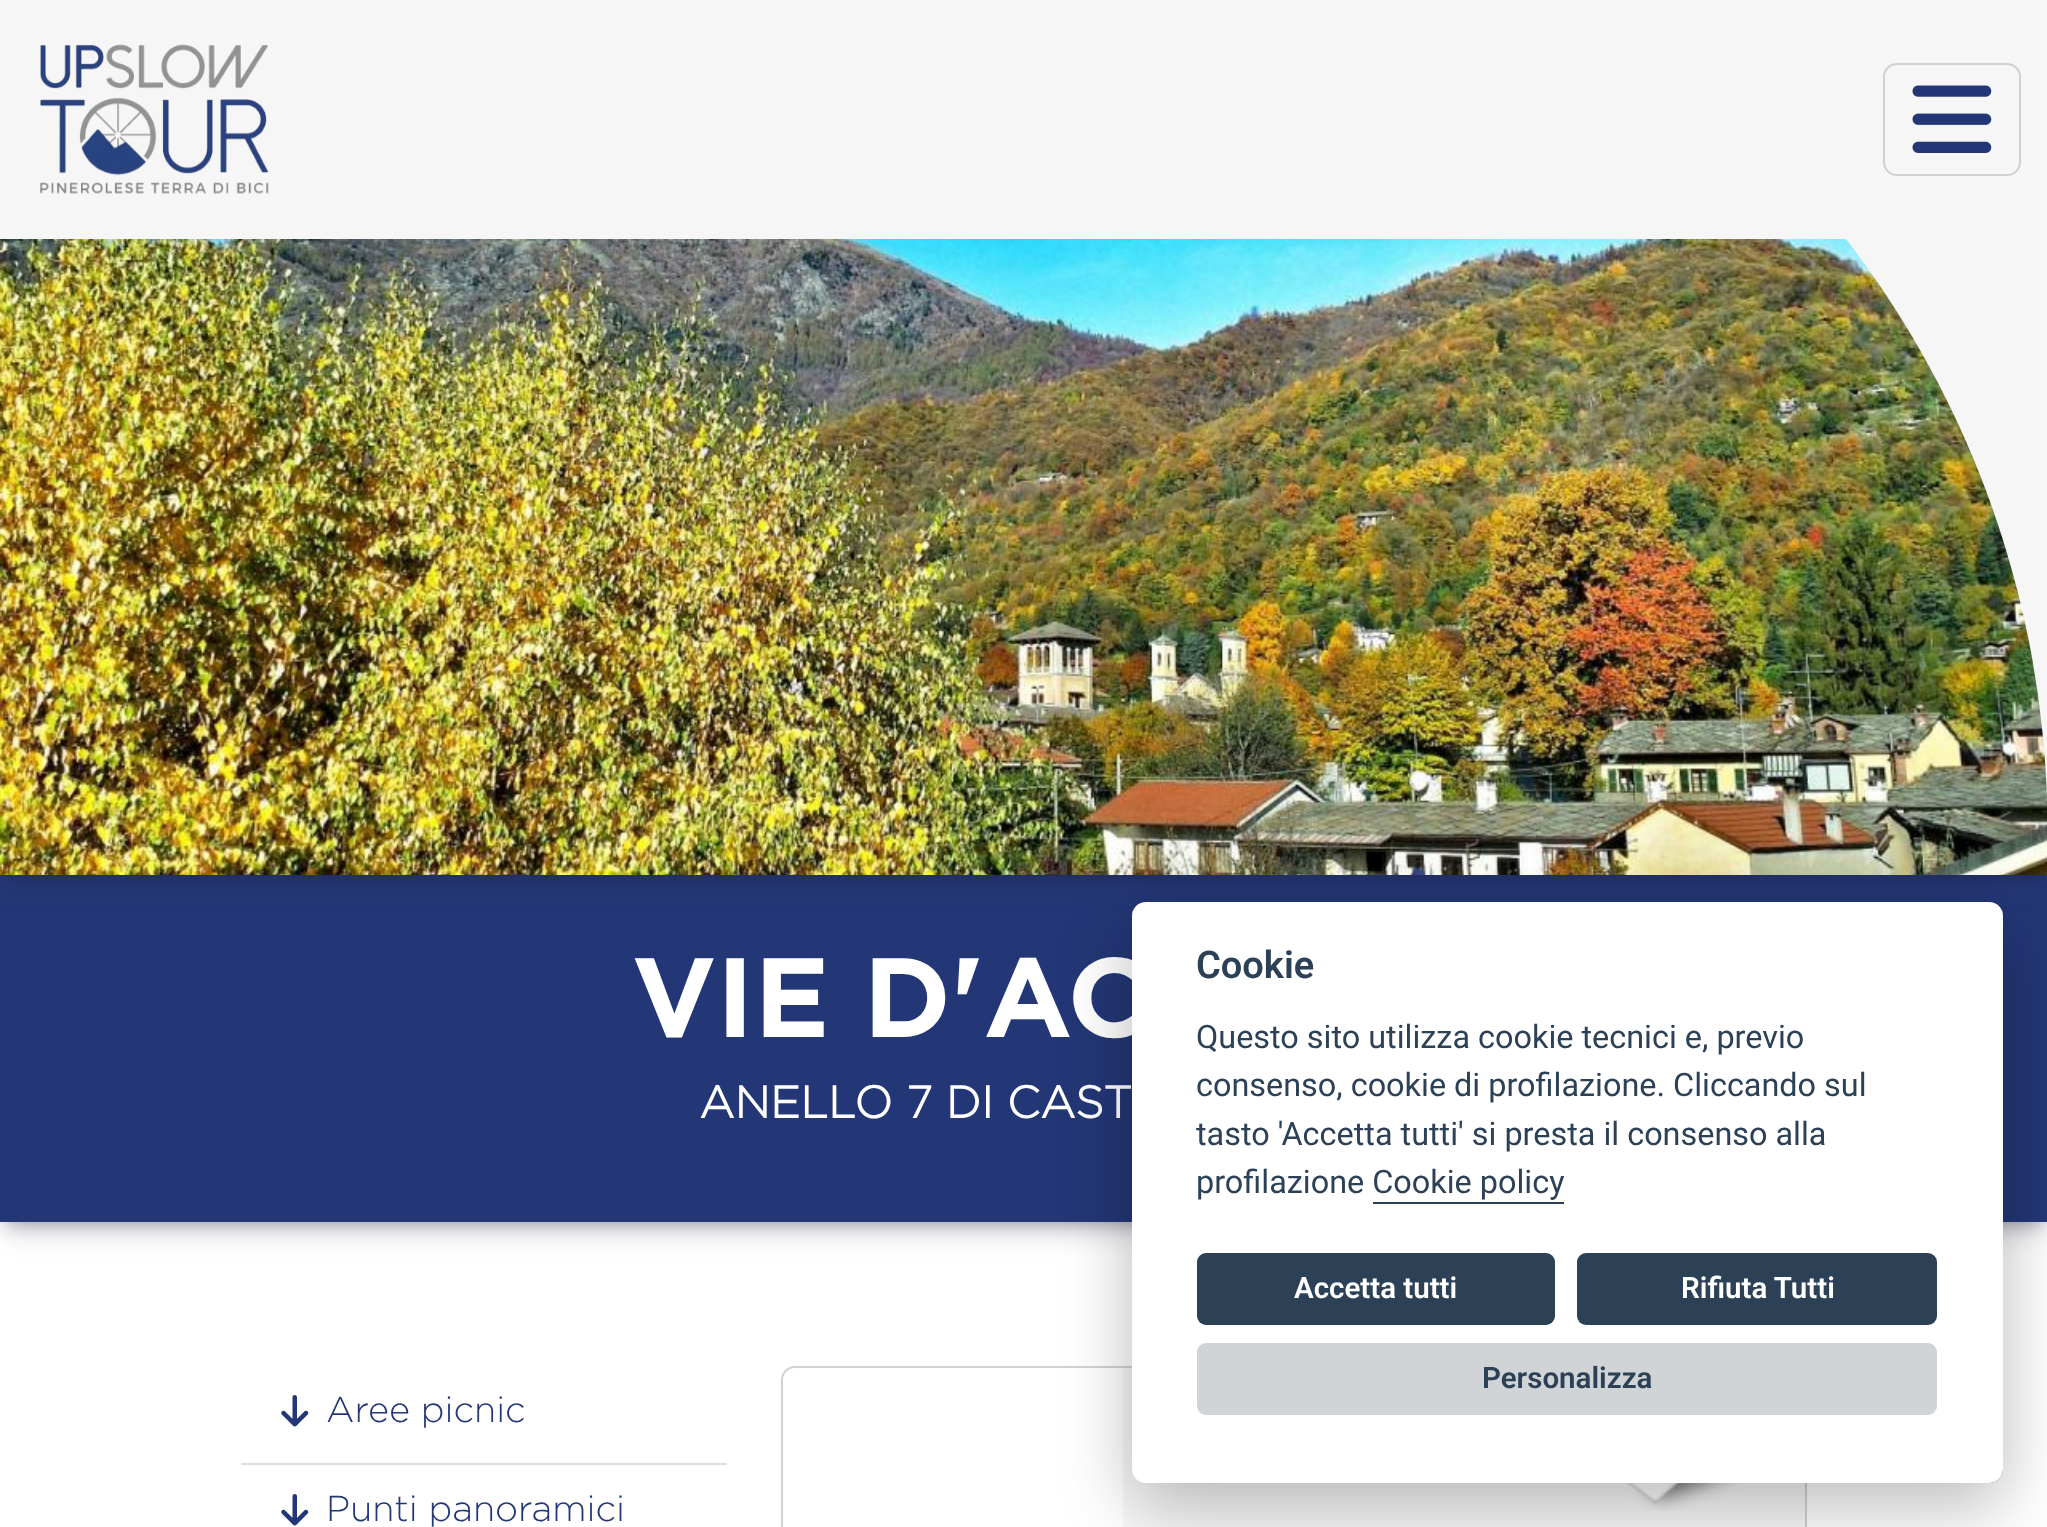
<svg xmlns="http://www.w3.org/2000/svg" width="2047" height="1527">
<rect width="100%" height="100%" fill="#fff"/>
<rect x="7" y="889" width="2034" height="333" fill="#0000004d" filter="blur(8px)"/>
<rect x="5" y="893" width="2038" height="338" fill="#32325d40" filter="blur(13.5px)"/>
<rect y="875" width="2047" height="347" fill="#233776"/>
<rect x="7" y="-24" width="2034" height="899" fill="#0000004d" filter="blur(8px)"/>
<rect x="5" y="-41" width="2038" height="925" fill="#32325d40" filter="blur(13.5px)"/>
<rect width="2047" height="239" fill="#f6f6f6"/>
<image x="40" y="44" width="229" height="150" href="media/1.png"/>
<rect x="1884" y="64" width="136" height="111" rx="13" fill="none" stroke="#d1d1d1" stroke-width="2"/>
<image x="1912" y="85" width="80" height="68" href="media/2.png"/>
<rect x="1846" y="239" width="201" height="561" fill="#f6f6f6"/>
<image x="0" y="239" width="2047" height="636" href="media/3.png"/>
<text x="632" y="1037" style="font-family:Gotham;font-size:112.5px;font-weight:bold;fill:#fff">VIE D'AC</text>
<text x="699" y="1118" style="font-family:'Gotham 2';font-size:45px;font-weight:bold;fill:#fff">ANELLO 7 DI CAST</text>
<rect x="241" y="1463" width="486" height="2" fill="#ddd"/>
<image x="281" y="1395" width="28" height="32" href="media/4.png"/>
<text x="326" y="1422" style="font-family:Gotham;font-size:36px;font-weight:300;fill:#233776">Aree picnic</text>
<image x="281" y="1494" width="28" height="32" href="media/4.png"/>
<text x="326" y="1521" style="font-family:Gotham;font-size:36px;font-weight:300;fill:#233776">Punti panoramici</text>
<rect x="782" y="1367" width="1024" height="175" rx="13" fill="none" stroke="#d2d2d2" stroke-width="2"/>
<rect x="1123" y="1368" width="682" height="159" fill="#21252908"/>
<image x="1625" y="1483" width="112" height="28" href="media/5.png"/>
<rect x="1826" y="1414" width="176" height="68" rx="13" fill="none" stroke="#233776" stroke-width="2"/>
<rect x="1132" y="925" width="871" height="580" rx="14" fill="#02020347" filter="blur(34px)"/>
<rect x="1132" y="902" width="871" height="581" rx="14" fill="#fff"/>
<text x="1196" y="978" style="font-family:Roboto;font-size:38px;font-weight:600;fill:#2d4156">Cookie</text>
<text x="1196" y="1048" style="font-family:Roboto;font-size:32.4px;fill:#2d4156">Questo sito utilizza cookie tecnici e, previo</text>
<text x="1196" y="1096" style="font-family:Roboto;font-size:32.4px;fill:#2d4156">consenso, cookie di profilazione. Cliccando sul</text>
<text x="1196" y="1145" style="font-family:Roboto;font-size:32.4px;fill:#2d4156">tasto 'Accetta tutti' si presta il consenso alla</text>
<text x="1196" y="1193" style="font-family:Roboto;font-size:32.4px;fill:#2d4156">profilazione Cookie policy</text>
<rect x="1373" y="1202" width="191" height="2" fill="#2d4156"/>
<rect x="1197" y="1253" width="358" height="72" rx="9" fill="#2d4156"/>
<text x="1294" y="1298" style="font-family:Roboto;font-size:29.5px;font-weight:600;fill:#fff">Accetta tutti</text>
<rect x="1577" y="1253" width="360" height="72" rx="9" fill="#2d4156"/>
<text x="1681" y="1298" style="font-family:Roboto;font-size:29.5px;font-weight:600;fill:#fff">Rifiuta Tutti</text>
<rect x="1197" y="1343" width="740" height="72" rx="9" fill="#d0d4d7"/>
<text x="1482" y="1388" style="font-family:Roboto;font-size:29.5px;font-weight:600;fill:#2d4156">Personalizza</text>
</svg>
